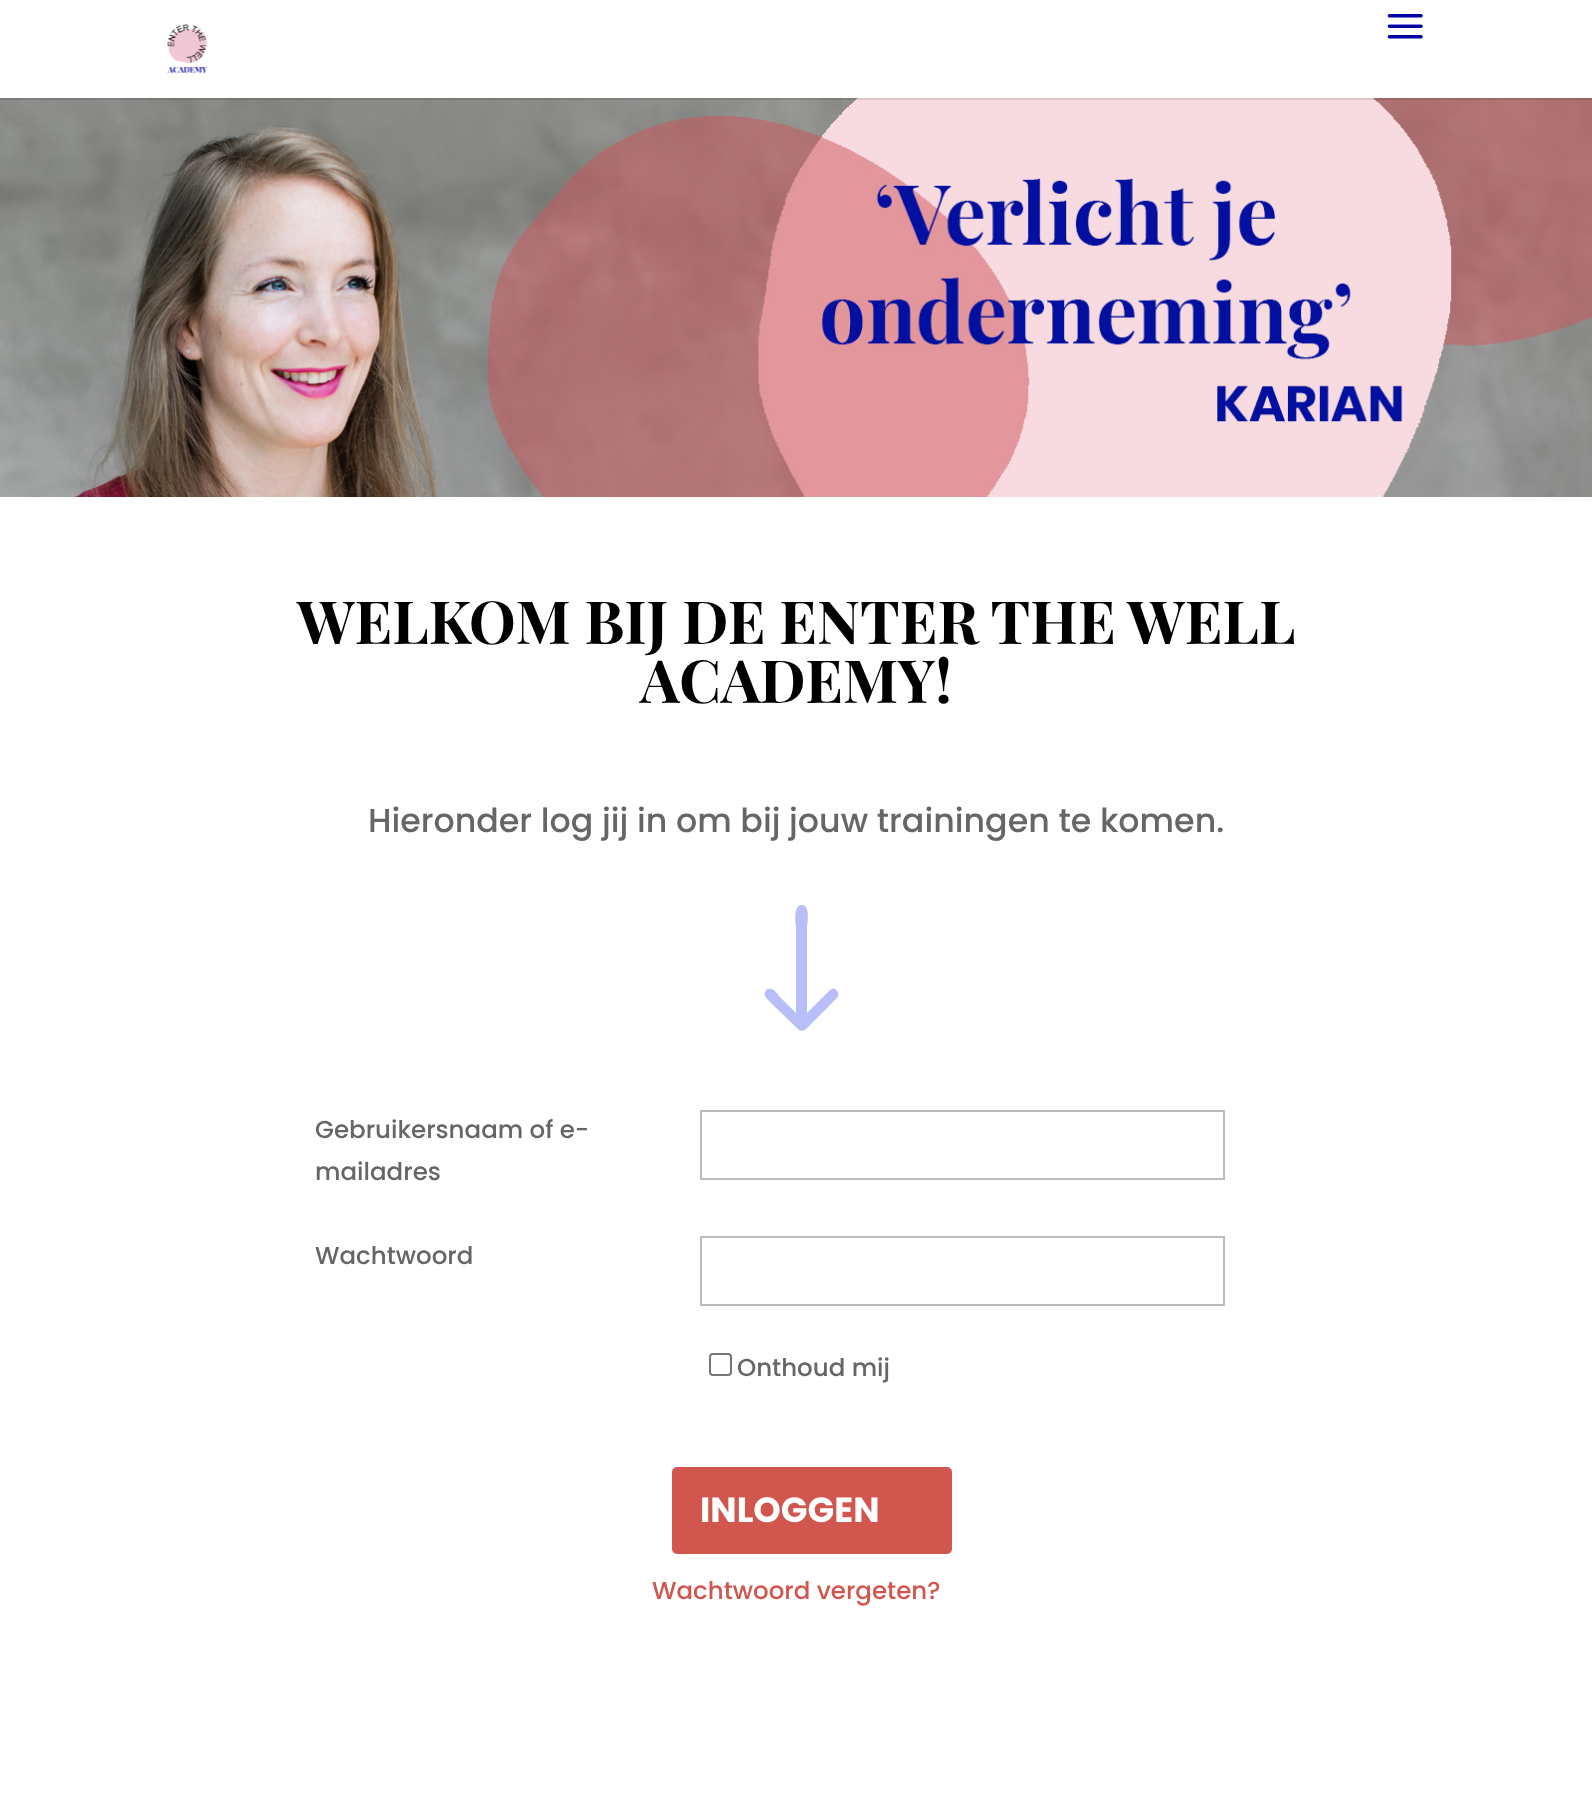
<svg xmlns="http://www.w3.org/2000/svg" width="1592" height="1816">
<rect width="100%" height="100%" fill="#fff"/>
<image x="0" y="98" width="1592" height="399" href="media/3.png"/>
<path d="M0 98v2h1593v-98h-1v96z" fill="#0000001a"/>
<image x="167" y="24" width="41" height="49" href="media/1.png"/>
<image x="1387" y="14" width="36" height="25" href="media/2.png"/>
<text x="297" y="644" style="font-family:Playfair Display;font-size:59.5px;font-weight:bold;fill:#000">WELKOM BIJ DE ENTER THE WELL</text>
<text x="640" y="703" style="font-family:Playfair Display;font-size:59.5px;font-weight:bold;fill:#000">ACADEMY!</text>
<text x="368" y="832" style="font-family:Poppins;font-size:33.25px;font-weight:500;fill:#666">Hieronder log jij in om bij jouw trainingen te komen.</text>
<path d="M802 905c-10 0-6 21-6 22v86l-15-15c-3-3-7-11-13-9c-1 0-2 1-3 3c-2 4 4 8 6 11l27 26c5 5 10-2 13-5l21-21c2-3 8-6 6-11c-1-1-2-2-3-3c-2-1-3 0-5 1l-23 23v-86c0-1 4-22-5-22z" fill="#b8bef7"/>
<text x="315" y="1138" style="font-family:Poppins;font-size:24.5px;font-weight:500;fill:#666">Gebruikersnaam of e-</text>
<text x="315" y="1180" style="font-family:Poppins;font-size:24.5px;font-weight:500;fill:#666">mailadres</text>
<rect x="701" y="1111" width="523" height="68" fill="none" stroke="#bbb" stroke-width="2"/>
<text x="315" y="1264" style="font-family:Poppins;font-size:24.5px;font-weight:500;fill:#666">Wachtwoord</text>
<rect x="701" y="1237" width="523" height="68" fill="none" stroke="#bbb" stroke-width="2"/>
<rect x="710" y="1354" width="21" height="21" rx="3" fill="none" stroke="#767676" stroke-width="2"/>
<text x="737" y="1376" style="font-family:Poppins;font-size:24.5px;font-weight:500;fill:#666">Onthoud mij</text>
<rect x="674" y="1469" width="276" height="83" rx="3" fill="#d1564e" stroke="#d1564e" stroke-width="4"/>
<text x="700" y="1522" style="font-family:Poppins;font-size:35px;font-weight:bold;fill:#fff">INLOGGEN</text>
<text x="652" y="1599" style="font-family:Poppins;font-size:24.5px;font-weight:500;fill:#d1564e">Wachtwoord vergeten?</text>
</svg>
